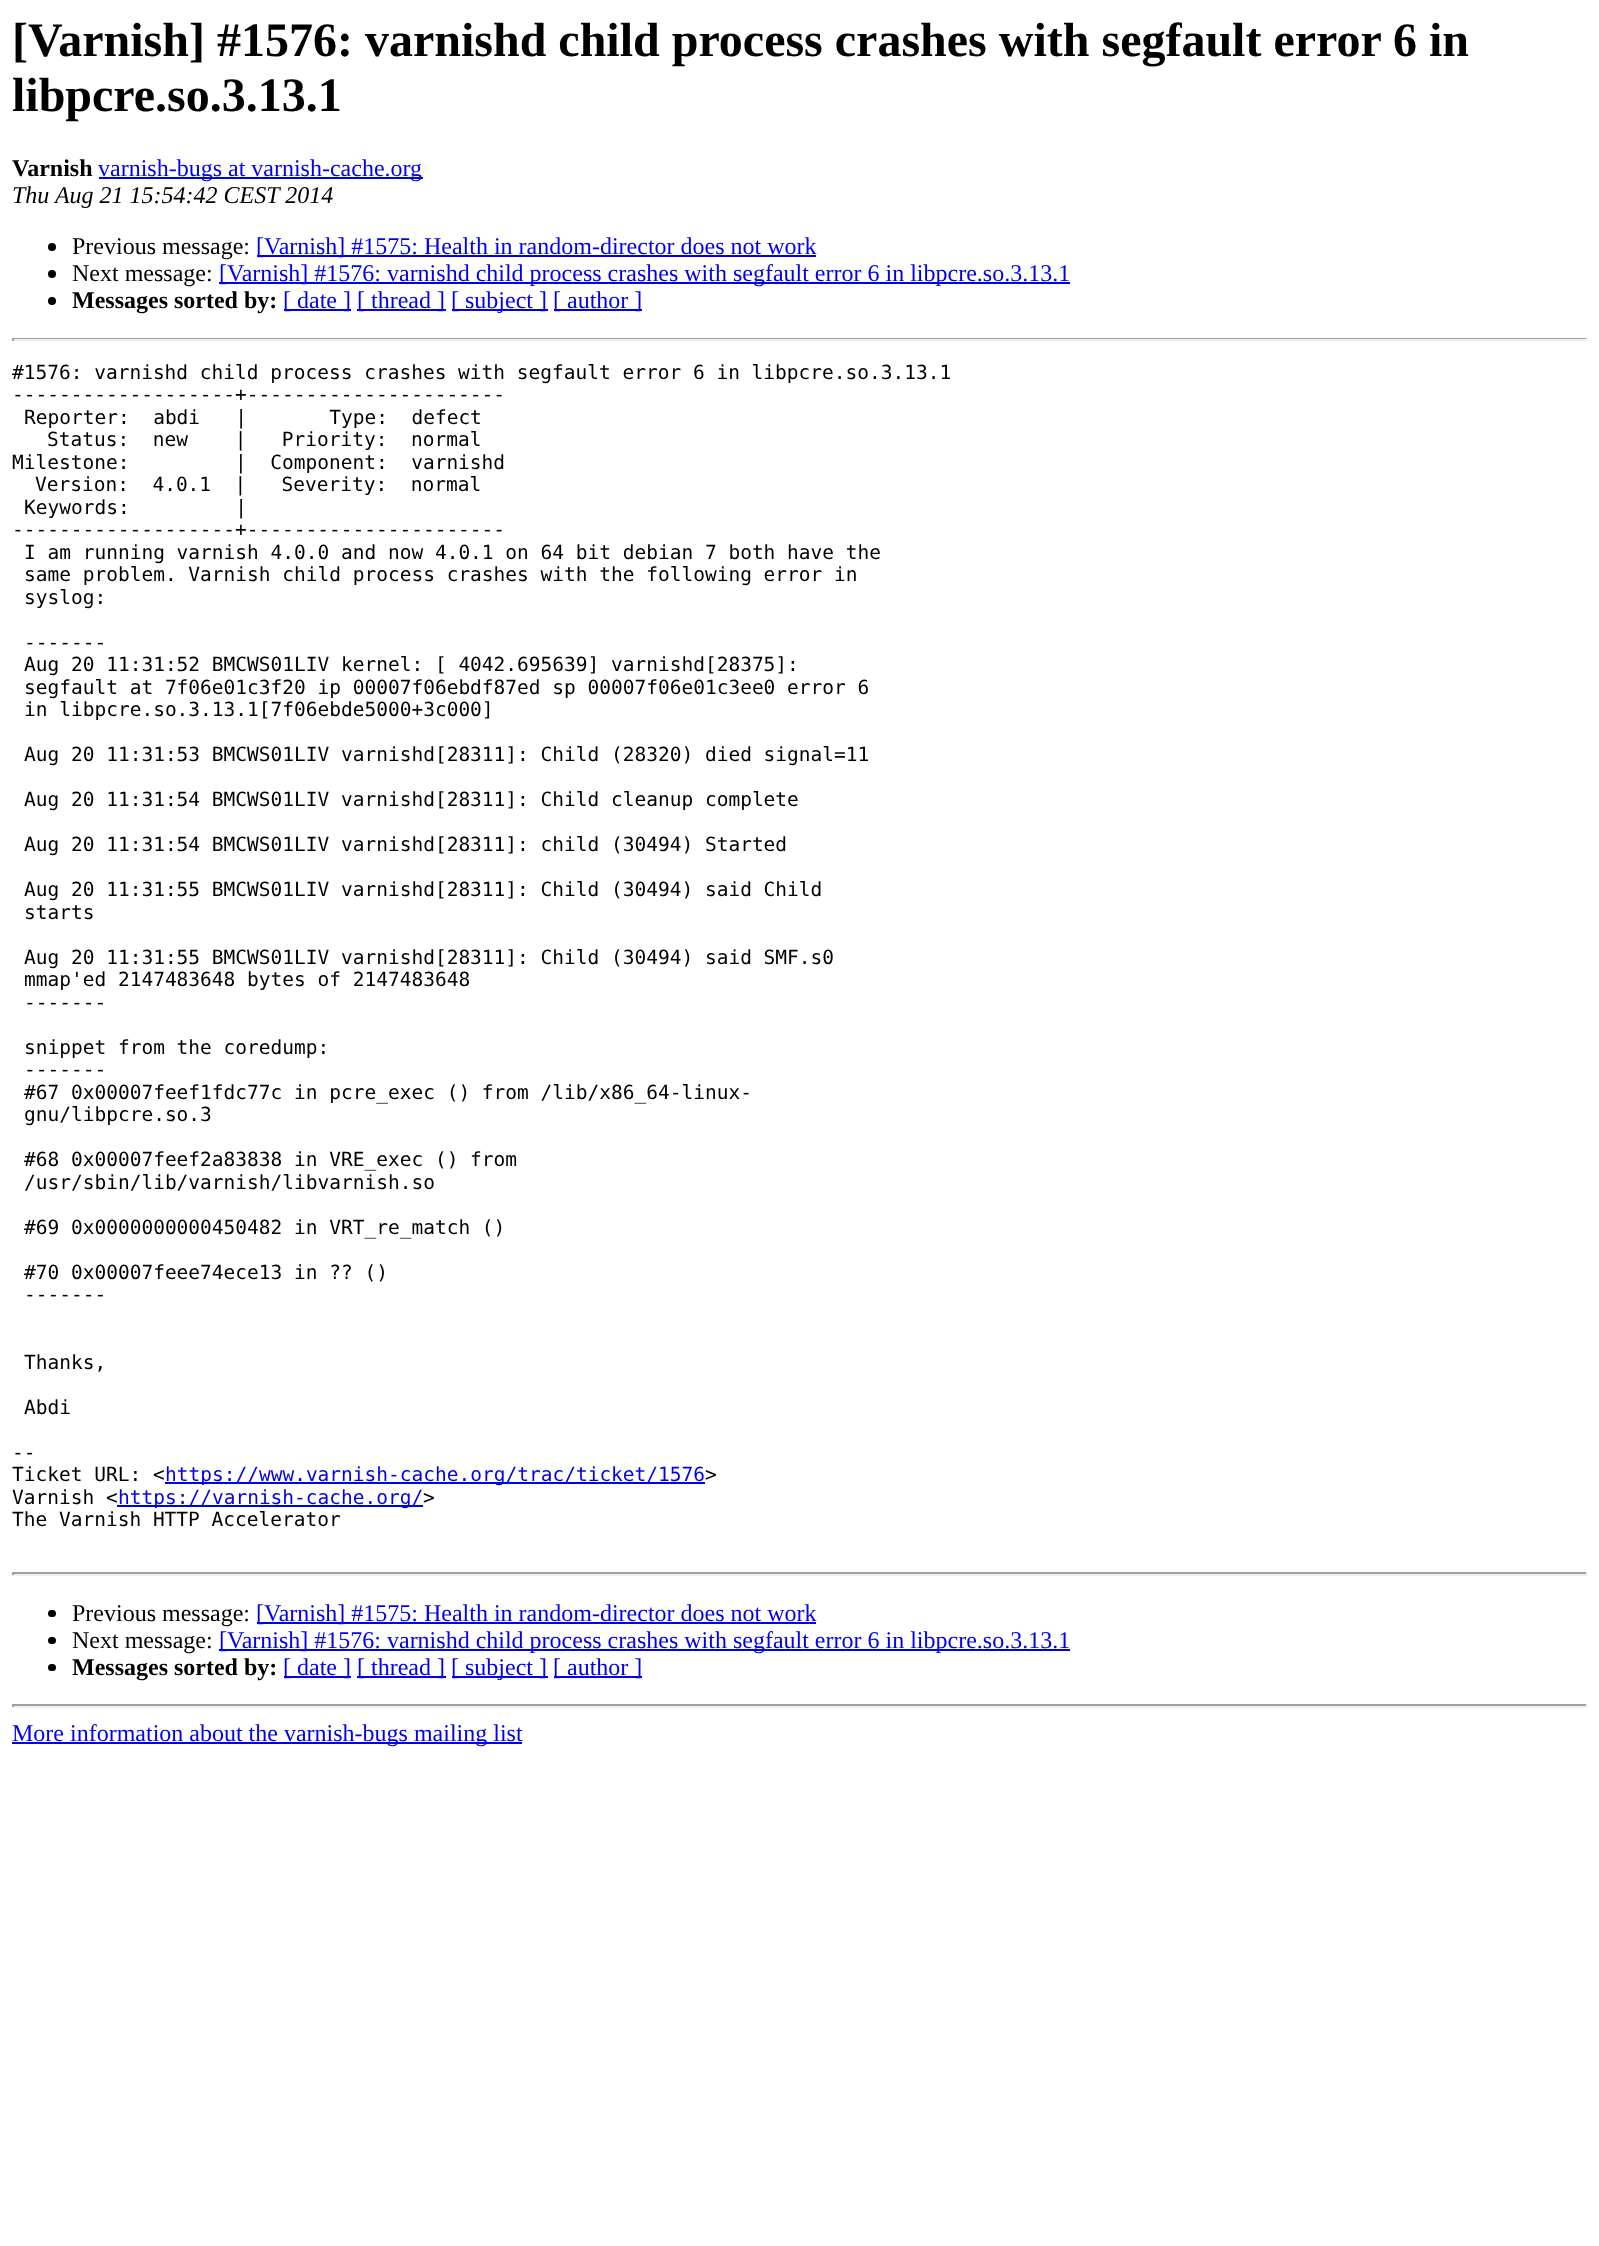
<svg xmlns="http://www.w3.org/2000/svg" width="1599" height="2246">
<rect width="100%" height="100%" fill="#fff"/>
<text x="12" y="56" style="font-family:Liberation Serif;font-size:48px;font-weight:bold;fill:#000">[Varnish] #1576: varnishd child process crashes with segfault error 6 in</text>
<text x="12" y="111" style="font-family:Liberation Serif;font-size:48px;font-weight:bold;fill:#000">libpcre.so.3.13.1</text>
<text x="12" y="176" style="font-family:Liberation Serif;font-size:24px;font-weight:bold;fill:#000">Varnish</text>
<rect x="99" y="177" width="324" height="2" fill="#00e"/>
<text x="98" y="176" style="font-family:Liberation Serif;font-size:24px;fill:#00e">varnish-bugs at varnish-cache.org</text>
<text x="12" y="203" style="font-family:Liberation Serif;font-size:24px;font-style:italic;fill:#000">Thu Aug 21 15:54:42 CEST 2014</text>
<circle cx="52" cy="247" r="4" fill="#000"/>
<text x="72" y="254" style="font-family:Liberation Serif;font-size:24px;fill:#000">Previous message:</text>
<rect x="257" y="255" width="559" height="2" fill="#00e"/>
<text x="256" y="254" style="font-family:Liberation Serif;font-size:24px;fill:#00e">[Varnish] #1575: Health in random-director does not work</text>
<circle cx="52" cy="274" r="4" fill="#000"/>
<text x="72" y="281" style="font-family:Liberation Serif;font-size:24px;fill:#000">Next message:</text>
<rect x="219" y="282" width="851" height="2" fill="#00e"/>
<text x="219" y="281" style="font-family:Liberation Serif;font-size:24px;fill:#00e">[Varnish] #1576: varnishd child process crashes with segfault error 6 in libpcre.so.3.13.1</text>
<circle cx="52" cy="301" r="4" fill="#000"/>
<text x="72" y="308" style="font-family:Liberation Serif;font-size:24px;font-weight:bold;fill:#000">Messages sorted by:</text>
<rect x="284" y="309" width="67" height="2" fill="#00e"/>
<text x="283" y="308" style="font-family:Liberation Serif;font-size:24px;fill:#00e">[ date ]</text>
<rect x="357" y="309" width="89" height="2" fill="#00e"/>
<text x="357" y="308" style="font-family:Liberation Serif;font-size:24px;fill:#00e">[ thread ]</text>
<rect x="452" y="309" width="96" height="2" fill="#00e"/>
<text x="451" y="308" style="font-family:Liberation Serif;font-size:24px;fill:#00e">[ subject ]</text>
<rect x="554" y="309" width="88" height="2" fill="#00e"/>
<text x="553" y="308" style="font-family:Liberation Serif;font-size:24px;fill:#00e">[ author ]</text>
<rect x="12" y="338" width="1575" height="1" fill="#9f9f9f"/>
<rect x="1586" y="338" width="2" height="3" fill="#eee"/>
<rect x="12" y="339" width="1575" height="2" fill="#eee"/>
<rect x="12" y="338" width="2" height="3" fill="#9f9f9f"/>
<text x="12" y="379" style="font-family:DejaVu Sans Mono;font-size:19.5px;fill:#000">#1576: varnishd child process crashes with segfault error 6 in libpcre.so.3.13.1</text>
<text x="12" y="401" style="font-family:DejaVu Sans Mono;font-size:19.5px;fill:#000">-------------------+----------------------</text>
<text x="24" y="424" style="font-family:DejaVu Sans Mono;font-size:19.5px;fill:#000" xml:space="preserve">Reporter:  abdi   |       Type:  defect</text>
<text x="47" y="446" style="font-family:DejaVu Sans Mono;font-size:19.5px;fill:#000" xml:space="preserve">Status:  new    |   Priority:  normal</text>
<text x="12" y="469" style="font-family:DejaVu Sans Mono;font-size:19.5px;fill:#000" xml:space="preserve">Milestone:         |  Component:  varnishd</text>
<text x="35" y="491" style="font-family:DejaVu Sans Mono;font-size:19.5px;fill:#000" xml:space="preserve">Version:  4.0.1  |   Severity:  normal</text>
<text x="24" y="514" style="font-family:DejaVu Sans Mono;font-size:19.5px;fill:#000" xml:space="preserve">Keywords:         |</text>
<text x="12" y="536" style="font-family:DejaVu Sans Mono;font-size:19.5px;fill:#000">-------------------+----------------------</text>
<text x="24" y="559" style="font-family:DejaVu Sans Mono;font-size:19.5px;fill:#000">I am running varnish 4.0.0 and now 4.0.1 on 64 bit debian 7 both have the</text>
<text x="24" y="581" style="font-family:DejaVu Sans Mono;font-size:19.5px;fill:#000">same problem. Varnish child process crashes with the following error in</text>
<text x="24" y="604" style="font-family:DejaVu Sans Mono;font-size:19.5px;fill:#000">syslog:</text>
<text x="24" y="649" style="font-family:DejaVu Sans Mono;font-size:19.5px;fill:#000">-------</text>
<text x="24" y="671" style="font-family:DejaVu Sans Mono;font-size:19.5px;fill:#000">Aug 20 11:31:52 BMCWS01LIV kernel: [ 4042.695639] varnishd[28375]:</text>
<text x="24" y="694" style="font-family:DejaVu Sans Mono;font-size:19.5px;fill:#000">segfault at 7f06e01c3f20 ip 00007f06ebdf87ed sp 00007f06e01c3ee0 error 6</text>
<text x="24" y="716" style="font-family:DejaVu Sans Mono;font-size:19.5px;fill:#000">in libpcre.so.3.13.1[7f06ebde5000+3c000]</text>
<text x="24" y="761" style="font-family:DejaVu Sans Mono;font-size:19.5px;fill:#000">Aug 20 11:31:53 BMCWS01LIV varnishd[28311]: Child (28320) died signal=11</text>
<text x="24" y="806" style="font-family:DejaVu Sans Mono;font-size:19.5px;fill:#000">Aug 20 11:31:54 BMCWS01LIV varnishd[28311]: Child cleanup complete</text>
<text x="24" y="851" style="font-family:DejaVu Sans Mono;font-size:19.5px;fill:#000">Aug 20 11:31:54 BMCWS01LIV varnishd[28311]: child (30494) Started</text>
<text x="24" y="896" style="font-family:DejaVu Sans Mono;font-size:19.5px;fill:#000">Aug 20 11:31:55 BMCWS01LIV varnishd[28311]: Child (30494) said Child</text>
<text x="24" y="919" style="font-family:DejaVu Sans Mono;font-size:19.5px;fill:#000">starts</text>
<text x="24" y="964" style="font-family:DejaVu Sans Mono;font-size:19.5px;fill:#000">Aug 20 11:31:55 BMCWS01LIV varnishd[28311]: Child (30494) said SMF.s0</text>
<text x="24" y="986" style="font-family:DejaVu Sans Mono;font-size:19.5px;fill:#000">mmap'ed 2147483648 bytes of 2147483648</text>
<text x="24" y="1009" style="font-family:DejaVu Sans Mono;font-size:19.5px;fill:#000">-------</text>
<text x="24" y="1054" style="font-family:DejaVu Sans Mono;font-size:19.5px;fill:#000">snippet from the coredump:</text>
<text x="24" y="1076" style="font-family:DejaVu Sans Mono;font-size:19.5px;fill:#000">-------</text>
<text x="24" y="1099" style="font-family:DejaVu Sans Mono;font-size:19.5px;fill:#000">#67 0x00007feef1fdc77c in pcre_exec () from /lib/x86_64-linux-</text>
<text x="24" y="1121" style="font-family:DejaVu Sans Mono;font-size:19.5px;fill:#000">gnu/libpcre.so.3</text>
<text x="24" y="1166" style="font-family:DejaVu Sans Mono;font-size:19.5px;fill:#000">#68 0x00007feef2a83838 in VRE_exec () from</text>
<text x="24" y="1189" style="font-family:DejaVu Sans Mono;font-size:19.5px;fill:#000">/usr/sbin/lib/varnish/libvarnish.so</text>
<text x="24" y="1234" style="font-family:DejaVu Sans Mono;font-size:19.5px;fill:#000">#69 0x0000000000450482 in VRT_re_match ()</text>
<text x="24" y="1279" style="font-family:DejaVu Sans Mono;font-size:19.5px;fill:#000">#70 0x00007feee74ece13 in ?? ()</text>
<text x="24" y="1301" style="font-family:DejaVu Sans Mono;font-size:19.5px;fill:#000">-------</text>
<text x="24" y="1369" style="font-family:DejaVu Sans Mono;font-size:19.5px;fill:#000">Thanks,</text>
<text x="24" y="1414" style="font-family:DejaVu Sans Mono;font-size:19.5px;fill:#000">Abdi</text>
<text x="12" y="1459" style="font-family:DejaVu Sans Mono;font-size:19.5px;fill:#000">--</text>
<text x="12" y="1481" style="font-family:DejaVu Sans Mono;font-size:19.5px;fill:#000">Ticket URL: &lt;</text>
<rect x="165" y="1482" width="540" height="2" fill="#00e"/>
<text x="165" y="1481" style="font-family:DejaVu Sans Mono;font-size:19.5px;fill:#00e">https://www.varnish-cache.org/trac/ticket/1576</text>
<text x="705" y="1481" style="font-family:DejaVu Sans Mono;font-size:19.5px;fill:#000">&gt;</text>
<text x="12" y="1504" style="font-family:DejaVu Sans Mono;font-size:19.5px;fill:#000">Varnish &lt;</text>
<rect x="117" y="1505" width="306" height="2" fill="#00e"/>
<text x="118" y="1504" style="font-family:DejaVu Sans Mono;font-size:19.5px;fill:#00e">https://varnish-cache.org/</text>
<text x="423" y="1504" style="font-family:DejaVu Sans Mono;font-size:19.5px;fill:#000">&gt;</text>
<text x="12" y="1526" style="font-family:DejaVu Sans Mono;font-size:19.5px;fill:#000">The Varnish HTTP Accelerator</text>
<rect x="12" y="1572" width="1575" height="2" fill="#9f9f9f"/>
<rect x="1586" y="1572" width="2" height="3" fill="#eee"/>
<rect x="12" y="1574" width="1575" height="2" fill="#eee"/>
<rect x="12" y="1572" width="2" height="3" fill="#9f9f9f"/>
<rect x="48" y="1610" width="8" height="7" rx="3.5" fill="#000"/>
<text x="72" y="1621" style="font-family:Liberation Serif;font-size:24px;fill:#000">Previous message:</text>
<rect x="257" y="1622" width="559" height="2" fill="#00e"/>
<text x="256" y="1621" style="font-family:Liberation Serif;font-size:24px;fill:#00e">[Varnish] #1575: Health in random-director does not work</text>
<rect x="48" y="1637" width="8" height="7" rx="3.5" fill="#000"/>
<text x="72" y="1648" style="font-family:Liberation Serif;font-size:24px;fill:#000">Next message:</text>
<rect x="219" y="1649" width="851" height="2" fill="#00e"/>
<text x="219" y="1648" style="font-family:Liberation Serif;font-size:24px;fill:#00e">[Varnish] #1576: varnishd child process crashes with segfault error 6 in libpcre.so.3.13.1</text>
<rect x="48" y="1664" width="8" height="7" rx="3.5" fill="#000"/>
<text x="72" y="1675" style="font-family:Liberation Serif;font-size:24px;font-weight:bold;fill:#000">Messages sorted by:</text>
<rect x="284" y="1676" width="67" height="2" fill="#00e"/>
<text x="283" y="1675" style="font-family:Liberation Serif;font-size:24px;fill:#00e">[ date ]</text>
<rect x="357" y="1676" width="89" height="2" fill="#00e"/>
<text x="357" y="1675" style="font-family:Liberation Serif;font-size:24px;fill:#00e">[ thread ]</text>
<rect x="452" y="1676" width="96" height="2" fill="#00e"/>
<text x="451" y="1675" style="font-family:Liberation Serif;font-size:24px;fill:#00e">[ subject ]</text>
<rect x="554" y="1676" width="88" height="2" fill="#00e"/>
<text x="553" y="1675" style="font-family:Liberation Serif;font-size:24px;fill:#00e">[ author ]</text>
<rect x="12" y="1704" width="1575" height="2" fill="#9f9f9f"/>
<rect x="1586" y="1704" width="2" height="3" fill="#eee"/>
<rect x="12" y="1706" width="1575" height="2" fill="#eee"/>
<rect x="12" y="1704" width="2" height="3" fill="#9f9f9f"/>
<rect x="12" y="1742" width="510" height="2" fill="#00e"/>
<text x="12" y="1741" style="font-family:Liberation Serif;font-size:24px;fill:#00e">More information about the varnish-bugs mailing list</text>
</svg>
